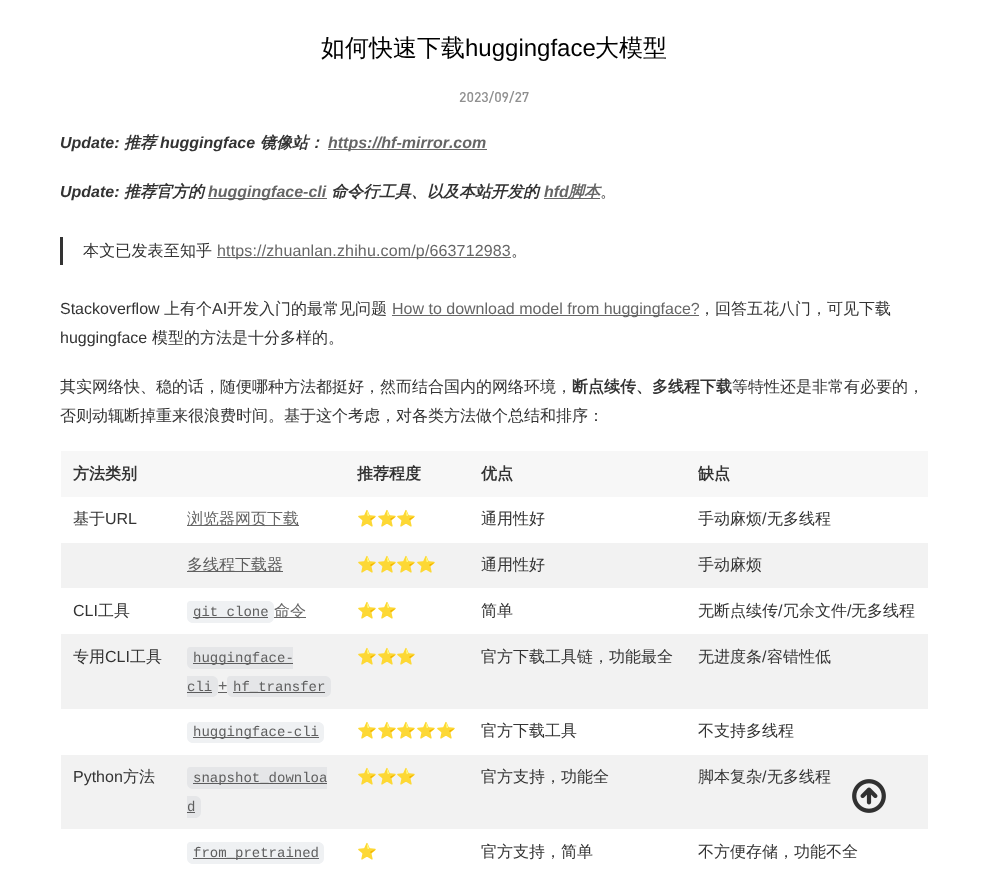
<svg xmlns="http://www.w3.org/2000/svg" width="988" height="875">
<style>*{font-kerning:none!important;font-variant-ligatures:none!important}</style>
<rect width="100%" height="100%" fill="#fff"/>
<text x="321" y="56" style="font-family:WenQuanYi Zen Hei;font-size:24px;font-weight:500;fill:#000">如何快速下载</text>
<text x="465" y="56" style="font-family:Liberation Sans;font-size:24px;fill:#000">huggingface</text>
<text x="595" y="56" style="font-family:WenQuanYi Zen Hei;font-size:24px;font-weight:500;fill:#000">大模型</text>
<text x="459" y="102" style="font-family:DIN;font-size:14px;font-weight:500;fill:#8f8f8f">2023/09/27</text>
<text x="60" y="148" style="font-family:Liberation Sans;font-size:16px;font-weight:bold;font-style:italic;fill:#333">Update:</text>
<text x="124" y="148" style="font-family:WenQuanYi Zen Hei;font-size:16px;font-weight:bold;font-style:italic;fill:#333">推荐</text>
<text x="160" y="148" style="font-family:Liberation Sans;font-size:16px;font-weight:bold;font-style:italic;fill:#333">huggingface</text>
<text x="260" y="148" style="font-family:WenQuanYi Zen Hei;font-size:16px;font-weight:bold;font-style:italic;fill:#333">镜像站：</text>
<rect x="328" y="149" width="159" height="1" fill="#666"/>
<text x="328" y="148" style="font-family:Liberation Sans;font-size:16px;font-weight:bold;font-style:italic;fill:#666">https://hf-mirror.com</text>
<text x="60" y="197" style="font-family:Liberation Sans;font-size:16px;font-weight:bold;font-style:italic;fill:#333">Update:</text>
<text x="124" y="197" style="font-family:WenQuanYi Zen Hei;font-size:16px;font-weight:bold;font-style:italic;fill:#333">推荐官方的</text>
<rect x="208" y="198" width="119" height="1" fill="#666"/>
<text x="208" y="197" style="font-family:Liberation Sans;font-size:16px;font-weight:bold;font-style:italic;fill:#666">huggingface-cli</text>
<text x="331" y="197" style="font-family:WenQuanYi Zen Hei;font-size:16px;font-weight:bold;font-style:italic;fill:#333">命令行工具、以及本站开发的</text>
<text x="544" y="197" style="font-family:Liberation Sans;font-size:16px;font-weight:bold;font-style:italic;fill:#666">hfd</text>
<rect x="544" y="198" width="56" height="1" fill="#666"/>
<text x="568" y="197" style="font-family:WenQuanYi Zen Hei;font-size:16px;font-weight:bold;font-style:italic;fill:#666">脚本</text>
<text x="600" y="197" style="font-family:WenQuanYi Zen Hei;font-size:16px;font-weight:500;fill:#333">。</text>
<rect x="60" y="237" width="3" height="28" fill="#333"/>
<text x="83" y="256" style="font-family:WenQuanYi Zen Hei;font-size:16px;font-weight:500;letter-spacing:0.15px;fill:#333">本文已发表至知乎</text>
<rect x="217" y="257" width="294" height="1" fill="#666"/>
<text x="217" y="256" style="font-family:Liberation Sans;font-size:16px;letter-spacing:0.15px;fill:#666">https://zhuanlan.zhihu.com/p/663712983</text>
<text x="511" y="256" style="font-family:WenQuanYi Zen Hei;font-size:16px;font-weight:500;letter-spacing:0.15px;fill:#333">。</text>
<text x="60" y="314" style="font-family:Liberation Sans;font-size:16px;fill:#333">Stackoverflow</text>
<text x="164" y="314" style="font-family:WenQuanYi Zen Hei;font-size:16px;font-weight:500;fill:#333">上有个</text>
<text x="212" y="314" style="font-family:Liberation Sans;font-size:16px;fill:#333">AI</text>
<text x="227" y="314" style="font-family:WenQuanYi Zen Hei;font-size:16px;font-weight:500;fill:#333">开发入门的最常见问题</text>
<rect x="392" y="315" width="307" height="1" fill="#666"/>
<text x="392" y="314" style="font-family:Liberation Sans;font-size:16px;fill:#666">How to download model from huggingface?</text>
<text x="699" y="314" style="font-family:WenQuanYi Zen Hei;font-size:16px;font-weight:500;fill:#333">，回答五花八门，可见下载</text>
<text x="60" y="343" style="font-family:Liberation Sans;font-size:16px;fill:#333">huggingface</text>
<text x="152" y="343" style="font-family:WenQuanYi Zen Hei;font-size:16px;font-weight:500;fill:#333">模型的方法是十分多样的。</text>
<text x="60" y="392" style="font-family:WenQuanYi Zen Hei;font-size:16px;font-weight:500;fill:#333">其实网络快、稳的话，随便哪种方法都挺好，然而结合国内的网络环境，</text>
<text x="572" y="392" style="font-family:WenQuanYi Zen Hei;font-size:16px;font-weight:bold;fill:#333">断点续传、多线程下载</text>
<text x="732" y="392" style="font-family:WenQuanYi Zen Hei;font-size:16px;font-weight:500;fill:#333">等特性还是非常有必要的，</text>
<text x="60" y="421" style="font-family:WenQuanYi Zen Hei;font-size:16px;font-weight:500;fill:#333">否则动辄断掉重来很浪费时间。基于这个考虑，对各类方法做个总结和排序：</text>
<rect x="61" y="451" width="867" height="46" fill="#f7f7f7"/>
<text x="73" y="479" style="font-family:WenQuanYi Zen Hei;font-size:16px;font-weight:bold;fill:#333">方法类别</text>
<text x="357" y="479" style="font-family:WenQuanYi Zen Hei;font-size:16px;font-weight:bold;fill:#333">推荐程度</text>
<text x="481" y="479" style="font-family:WenQuanYi Zen Hei;font-size:16px;font-weight:bold;fill:#333">优点</text>
<text x="698" y="479" style="font-family:WenQuanYi Zen Hei;font-size:16px;font-weight:bold;fill:#333">缺点</text>
<text x="73" y="524" style="font-family:WenQuanYi Zen Hei;font-size:16px;font-weight:500;fill:#333">基于</text>
<text x="105" y="524" style="font-family:Liberation Sans;font-size:16px;fill:#333">URL</text>
<rect x="187" y="525" width="112" height="1" fill="#666"/>
<text x="187" y="524" style="font-family:WenQuanYi Zen Hei;font-size:16px;font-weight:500;fill:#666">浏览器网页下载</text>
<text x="357" y="524" style="font-family:Noto Color Emoji;font-size:16px;fill:#333">⭐⭐⭐</text>
<text x="481" y="524" style="font-family:WenQuanYi Zen Hei;font-size:16px;font-weight:500;fill:#333">通用性好</text>
<text x="698" y="524" style="font-family:WenQuanYi Zen Hei;font-size:16px;font-weight:500;fill:#333">手动麻烦</text>
<text x="762" y="524" style="font-family:Liberation Sans;font-size:16px;fill:#333">/</text>
<text x="767" y="524" style="font-family:WenQuanYi Zen Hei;font-size:16px;font-weight:500;fill:#333">无多线程</text>
<rect x="61" y="543" width="867" height="45" fill="#f2f2f2"/>
<rect x="187" y="571" width="96" height="1" fill="#616161"/>
<text x="187" y="570" style="font-family:WenQuanYi Zen Hei;font-size:16px;font-weight:500;fill:#5e5e5e">多线程下载器</text>
<text x="357" y="570" style="font-family:Noto Color Emoji;font-size:16px;fill:#333">⭐⭐⭐⭐</text>
<text x="481" y="570" style="font-family:WenQuanYi Zen Hei;font-size:16px;font-weight:500;fill:#333">通用性好</text>
<text x="698" y="570" style="font-family:WenQuanYi Zen Hei;font-size:16px;font-weight:500;fill:#333">手动麻烦</text>
<text x="73" y="616" style="font-family:Liberation Sans;font-size:16px;fill:#333">CLI</text>
<text x="98" y="616" style="font-family:WenQuanYi Zen Hei;font-size:16px;font-weight:500;fill:#333">工具</text>
<path d="M190 601h78c3.5 0 6 2.5 6 6v10c0 3.5-2.5 6-6 6h-75c-3.5 0-6-2.5-6-6v-13c0-1.5 1.5-3 3-3z" fill="#eff1f3"/>
<rect x="193" y="617" width="75" height="1" fill="#606061"/>
<text x="193" y="616" style="font-family:Liberation Mono;font-size:14px;fill:#5e5e5e">git clone</text>
<rect x="274" y="617" width="32" height="1" fill="#666"/>
<text x="274" y="616" style="font-family:WenQuanYi Zen Hei;font-size:16px;font-weight:500;fill:#666">命令</text>
<text x="357" y="616" style="font-family:Noto Color Emoji;font-size:16px;fill:#333">⭐⭐</text>
<text x="481" y="616" style="font-family:WenQuanYi Zen Hei;font-size:16px;font-weight:500;fill:#333">简单</text>
<text x="698" y="616" style="font-family:WenQuanYi Zen Hei;font-size:16px;font-weight:500;fill:#333">无断点续传</text>
<text x="778" y="616" style="font-family:Liberation Sans;font-size:16px;fill:#333">/</text>
<text x="783" y="616" style="font-family:WenQuanYi Zen Hei;font-size:16px;font-weight:500;fill:#333">冗余文件</text>
<text x="847" y="616" style="font-family:Liberation Sans;font-size:16px;fill:#333">/</text>
<text x="851" y="616" style="font-family:WenQuanYi Zen Hei;font-size:16px;font-weight:500;fill:#333">无多线程</text>
<rect x="61" y="634" width="867" height="75" fill="#f2f2f2"/>
<text x="73" y="662" style="font-family:WenQuanYi Zen Hei;font-size:16px;font-weight:500;fill:#333">专用</text>
<text x="105" y="662" style="font-family:Liberation Sans;font-size:16px;fill:#333">CLI</text>
<text x="130" y="662" style="font-family:WenQuanYi Zen Hei;font-size:16px;font-weight:500;fill:#333">工具</text>
<path d="M190 647h103v22h-100c-3.5 0-6-2.5-6-6v-13c0-1.5 1.5-3 3-3z" fill="#e5e6e8"/>
<rect x="193" y="663" width="100" height="1" fill="#5c5c5d"/>
<text x="193" y="662" style="font-family:Liberation Mono;font-size:14px;fill:#5e5e5e">huggingface-</text>
<path d="M187 676h25c3.5 0 6 2.5 6 6v9c0 3.5-2.5 6-6 6h-25z" fill="#e5e6e8"/>
<text x="187" y="691" style="font-family:Liberation Mono;font-size:14px;fill:#5e5e5e">cli</text>
<rect x="187" y="692" width="25" height="1" fill="#5c5c5d"/>
<text x="218" y="691" style="font-family:Liberation Sans;font-size:16px;fill:#666">+</text>
<rect x="218" y="692" width="9" height="1" fill="#616161"/>
<path d="M230 676h95c3.5 0 6 2.5 6 6v9c0 3.5-2.5 6-6 6h-92c-3.5 0-6-2.5-6-6v-12c0-1.5 1.5-3 3-3z" fill="#e5e6e8"/>
<rect x="233" y="692" width="92" height="1" fill="#5c5c5d"/>
<text x="233" y="691" style="font-family:Liberation Mono;font-size:14px;fill:#5e5e5e">hf_transfer</text>
<text x="357" y="662" style="font-family:Noto Color Emoji;font-size:16px;fill:#333">⭐⭐⭐</text>
<text x="481" y="662" style="font-family:WenQuanYi Zen Hei;font-size:16px;font-weight:500;fill:#333">官方下载工具链，功能最全</text>
<text x="698" y="662" style="font-family:WenQuanYi Zen Hei;font-size:16px;font-weight:500;fill:#333">无进度条</text>
<text x="762" y="662" style="font-family:Liberation Sans;font-size:16px;fill:#333">/</text>
<text x="767" y="662" style="font-family:WenQuanYi Zen Hei;font-size:16px;font-weight:500;fill:#333">容错性低</text>
<path d="M190 722h128c3.5 0 6 2.5 6 6v9c0 3.5-2.5 6-6 6h-125c-3.5 0-6-2.5-6-6v-12c0-1.5 1.5-3 3-3z" fill="#eff1f3"/>
<rect x="193" y="737" width="126" height="1" fill="#606061"/>
<text x="193" y="736" style="font-family:Liberation Mono;font-size:14px;fill:#5e5e5e">huggingface-cli</text>
<text x="357" y="736" style="font-family:Noto Color Emoji;font-size:16px;fill:#333">⭐⭐⭐⭐⭐</text>
<text x="481" y="736" style="font-family:WenQuanYi Zen Hei;font-size:16px;font-weight:500;fill:#333">官方下载工具</text>
<text x="698" y="736" style="font-family:WenQuanYi Zen Hei;font-size:16px;font-weight:500;fill:#333">不支持多线程</text>
<rect x="61" y="755" width="867" height="74" fill="#f2f2f2"/>
<text x="73" y="782" style="font-family:Liberation Sans;font-size:16px;fill:#333">Python</text>
<text x="123" y="782" style="font-family:WenQuanYi Zen Hei;font-size:16px;font-weight:500;fill:#333">方法</text>
<path d="M190 767h137v22h-134c-3.5 0-6-2.5-6-6v-13c0-1.5 1.5-3 3-3z" fill="#e5e6e8"/>
<rect x="193" y="783" width="134" height="1" fill="#5c5c5d"/>
<text x="193" y="782" style="font-family:Liberation Mono;font-size:14px;fill:#5e5e5e">snapshot_downloa</text>
<path d="M187 796h8c3.5 0 6 2.5 6 6v10c0 3.5-2.5 6-6 6h-8z" fill="#e5e6e8"/>
<text x="187" y="811" style="font-family:Liberation Mono;font-size:14px;fill:#5e5e5e">d</text>
<rect x="187" y="812" width="8" height="1" fill="#5c5c5d"/>
<text x="357" y="782" style="font-family:Noto Color Emoji;font-size:16px;fill:#333">⭐⭐⭐</text>
<text x="481" y="782" style="font-family:WenQuanYi Zen Hei;font-size:16px;font-weight:500;fill:#333">官方支持，功能全</text>
<text x="698" y="782" style="font-family:WenQuanYi Zen Hei;font-size:16px;font-weight:500;fill:#333">脚本复杂</text>
<text x="762" y="782" style="font-family:Liberation Sans;font-size:16px;fill:#333">/</text>
<text x="767" y="782" style="font-family:WenQuanYi Zen Hei;font-size:16px;font-weight:500;fill:#333">无多线程</text>
<path d="M190 842h128c3.5 0 6 2.5 6 6v10c0 3.5-2.5 6-6 6h-125c-3.5 0-6-2.5-6-6v-13c0-1.5 1.5-3 3-3z" fill="#eff1f3"/>
<rect x="193" y="858" width="126" height="1" fill="#606061"/>
<text x="193" y="857" style="font-family:Liberation Mono;font-size:14px;fill:#5e5e5e">from_pretrained</text>
<text x="357" y="857" style="font-family:Noto Color Emoji;font-size:16px;fill:#333">⭐</text>
<text x="481" y="857" style="font-family:WenQuanYi Zen Hei;font-size:16px;font-weight:500;fill:#333">官方支持，简单</text>
<text x="698" y="857" style="font-family:WenQuanYi Zen Hei;font-size:16px;font-weight:500;fill:#333">不方便存储，功能不全</text>
<image x="852" y="779" width="34" height="34" href="media/1.png"/>
</svg>
